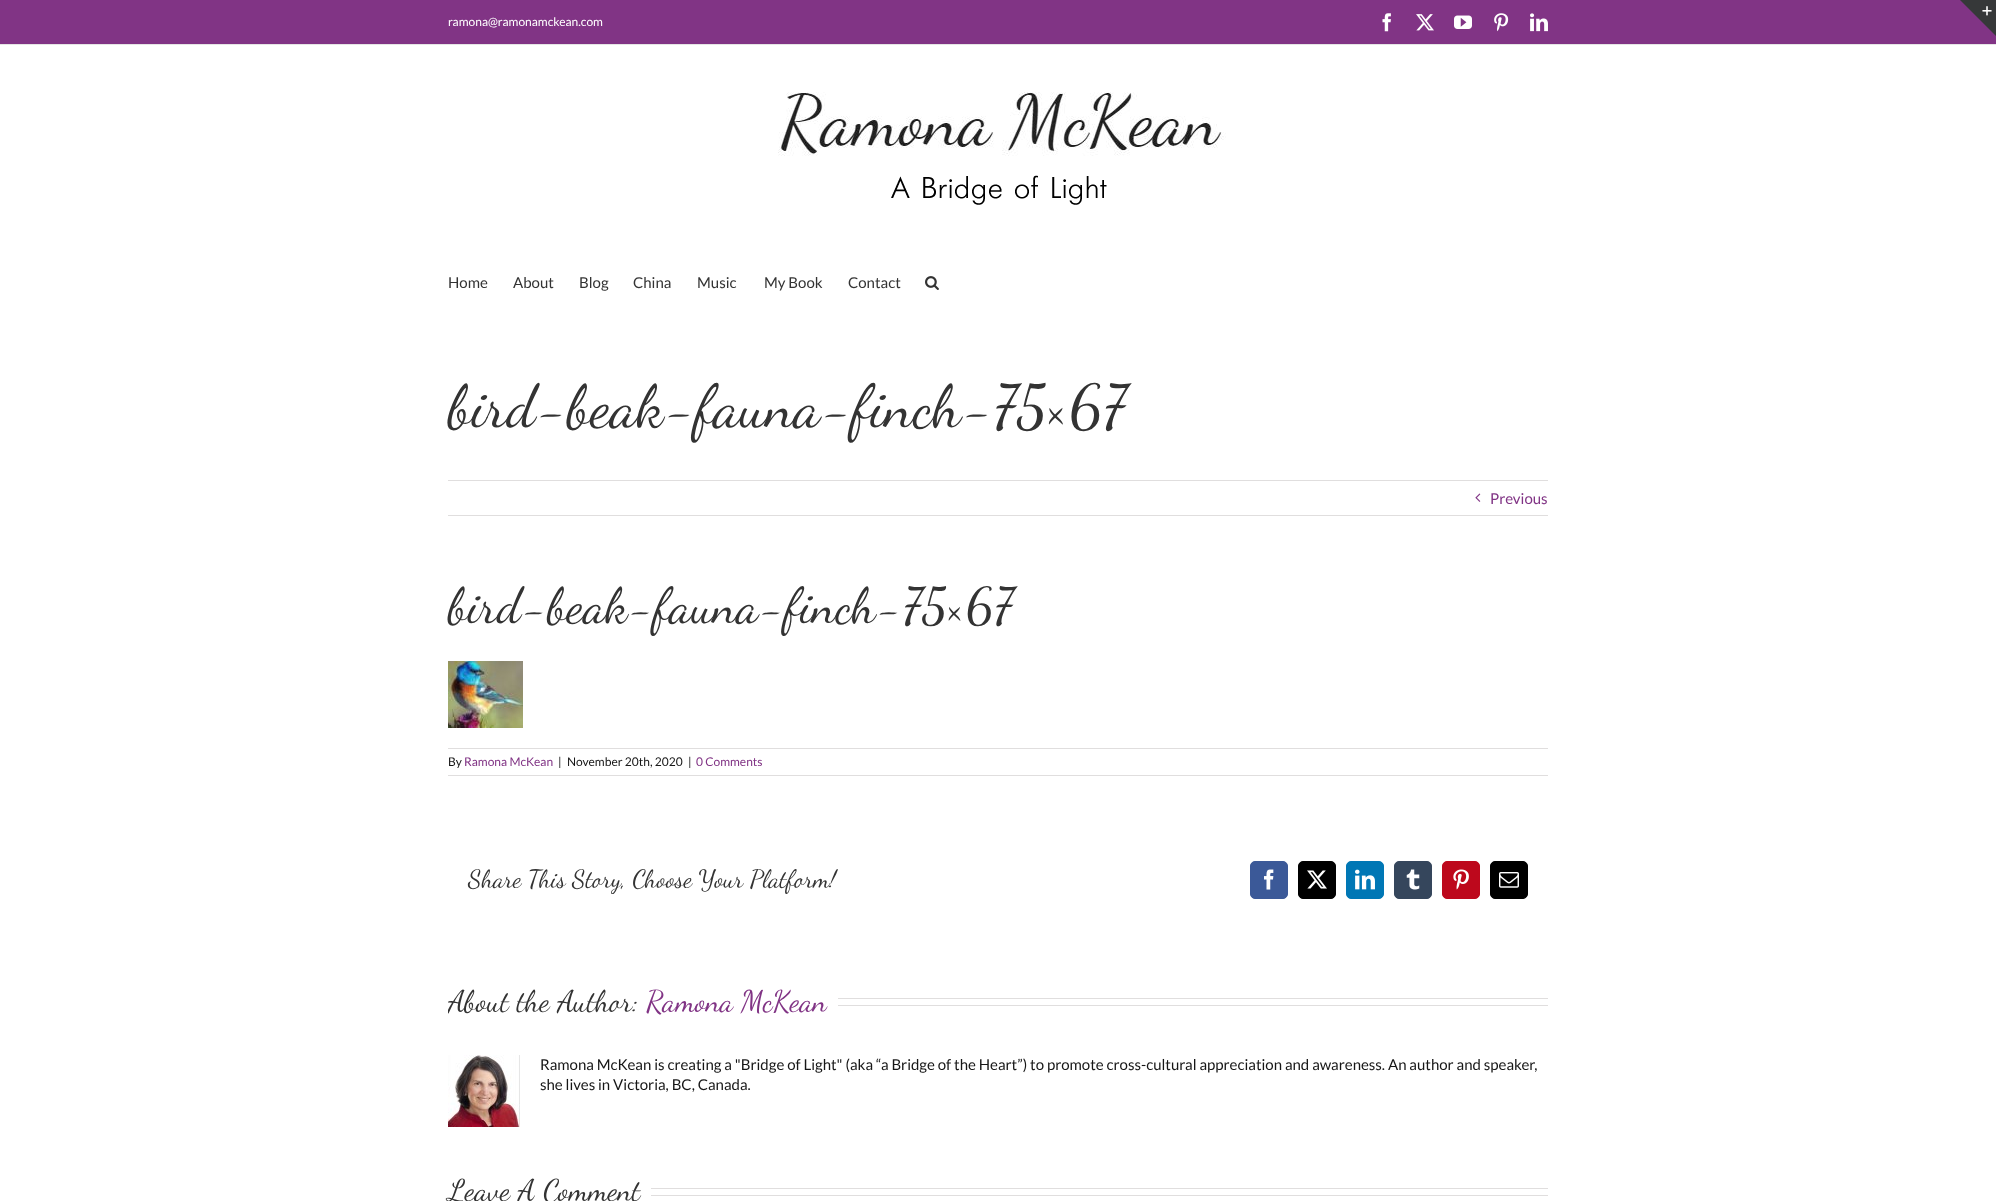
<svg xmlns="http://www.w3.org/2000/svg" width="1996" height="1201">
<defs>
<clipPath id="clip1"><rect x="448" y="979" width="1100" height="153"/></clipPath>
</defs>
<rect width="100%" height="100%" fill="#fff"/>
<rect width="1996" height="44" fill="#813485"/>
<rect y="44" width="1996" height="1" fill="#e5e5e5"/>
<text x="448" y="26" style="font-family:Lato;font-size:12px;fill:#fff">ramona@ramonamckean.com</text>
<image x="1382" y="13" width="9" height="19" href="media/1.png"/>
<image x="1416" y="14" width="18" height="17" href="media/2.png"/>
<image x="1454" y="15" width="18" height="14" href="media/3.png"/>
<image x="1494" y="13" width="15" height="19" href="media/4.png"/>
<image x="1530" y="13" width="18" height="19" href="media/5.png"/>
<image x="778" y="92" width="448" height="113" href="media/6.png"/>
<text x="448" y="288" style="font-family:Lato;font-size:15px;fill:#333">Home</text>
<text x="513" y="288" style="font-family:Lato;font-size:15px;fill:#333">About</text>
<text x="579" y="288" style="font-family:Lato;font-size:15px;fill:#333">Blog</text>
<text x="633" y="288" style="font-family:Lato;font-size:15px;fill:#333">China</text>
<text x="697" y="288" style="font-family:Lato;font-size:15px;fill:#333">Music</text>
<text x="764" y="288" style="font-family:Lato;font-size:15px;fill:#333">My Book</text>
<text x="848" y="288" style="font-family:Lato;font-size:15px;fill:#333">Contact</text>
<image x="925" y="276" width="14" height="14" href="media/7.png"/>
<path d="M1960 0h36v36z" fill="#363839"/>
<image x="1982" y="6" width="10" height="10" href="media/8.png"/>
<text x="448" y="426" style="font-family:Dancing Script;font-size:60px;fill:#333">bird-beak-fauna-finch-75×67</text>
<rect x="448" y="480" width="1100" height="1" fill="#e0dede"/>
<rect x="448" y="515" width="1100" height="1" fill="#e0dede"/>
<image x="1475" y="493" width="6" height="9" href="media/9.png"/>
<text x="1490" y="504" style="font-family:Lato;font-size:15px;fill:#813485">Previous</text>
<text x="448" y="622" style="font-family:Dancing Script;font-size:50px;fill:#333">bird-beak-fauna-finch-75×67</text>
<image x="448" y="661" width="75" height="67" href="media/10.png"/>
<rect x="448" y="748" width="1100" height="1" fill="#e0dede"/>
<rect x="448" y="775" width="1100" height="1" fill="#e0dede"/>
<text x="448" y="766" style="font-family:Lato;font-size:12px;fill:#161616">By</text>
<text x="464" y="766" style="font-family:Lato;font-size:12px;fill:#813485">Ramona McKean</text>
<text x="558" y="766" style="font-family:Lato;font-size:12px;fill:#161616">|</text>
<text x="567" y="766" style="font-family:Lato;font-size:12px;fill:#161616">November 20th, 2020</text>
<text x="688" y="766" style="font-family:Lato;font-size:12px;fill:#161616">|</text>
<text x="696" y="766" style="font-family:Lato;font-size:12px;fill:#813485">0 Comments</text>
<text x="468" y="887" style="font-family:Dancing Script;font-size:25px;fill:#333">Share This Story, Choose Your Platform!</text>
<rect x="1250.5" y="861.5" width="37" height="37" rx="4.5" fill="#3b5998" stroke="#3b5998"/>
<image x="1264" y="869" width="10" height="21" href="media/11.png"/>
<rect x="1298.5" y="861.5" width="37" height="37" rx="4.5" fill="#000" stroke="#000"/>
<image x="1307" y="870" width="20" height="19" href="media/12.png"/>
<rect x="1346.5" y="861.5" width="37" height="37" rx="4.5" fill="#0077b5" stroke="#0077b5"/>
<image x="1355" y="869" width="20" height="21" href="media/13.png"/>
<rect x="1394.5" y="861.5" width="37" height="37" rx="4.5" fill="#35465c" stroke="#35465c"/>
<image x="1406" y="869" width="14" height="21" href="media/14.png"/>
<rect x="1442.5" y="861.5" width="37" height="37" rx="4.5" fill="#bd081c" stroke="#bd081c"/>
<image x="1453" y="869" width="16" height="21" href="media/15.png"/>
<rect x="1490.5" y="861.5" width="37" height="37" rx="4.5" fill="#000" stroke="#000"/>
<image x="1499" y="872" width="20" height="16" href="media/16.png"/>
<g clip-path="url(#clip1)">
<text x="448" y="1011" style="font-family:Dancing Script;font-size:30px;fill:#333">About the Author:</text>
</g>
<text x="646" y="1011" style="font-family:Dancing Script;font-size:30px;fill:#813485">Ramona McKean</text>
<rect x="838" y="998" width="710" height="1" fill="#e0dede"/>
<rect x="838" y="1005" width="710" height="1" fill="#e0dede"/>
<image x="448" y="1055" width="72" height="72" href="media/17.png"/>
<text x="540" y="1070" style="font-family:Lato;font-size:15px;fill:#161616">Ramona McKean is creating a "Bridge of Light" (aka “a Bridge of the Heart”) to promote cross-cultural appreciation and awareness. An author and speaker,</text>
<text x="540" y="1090" style="font-family:Lato;font-size:15px;fill:#161616">she lives in Victoria, BC, Canada.</text>
<text x="448" y="1200" style="font-family:Dancing Script;font-size:30px;fill:#333">Leave A Comment</text>
<rect x="651" y="1188" width="897" height="1" fill="#e0dede"/>
<rect x="651" y="1195" width="897" height="1" fill="#e0dede"/>
</svg>
